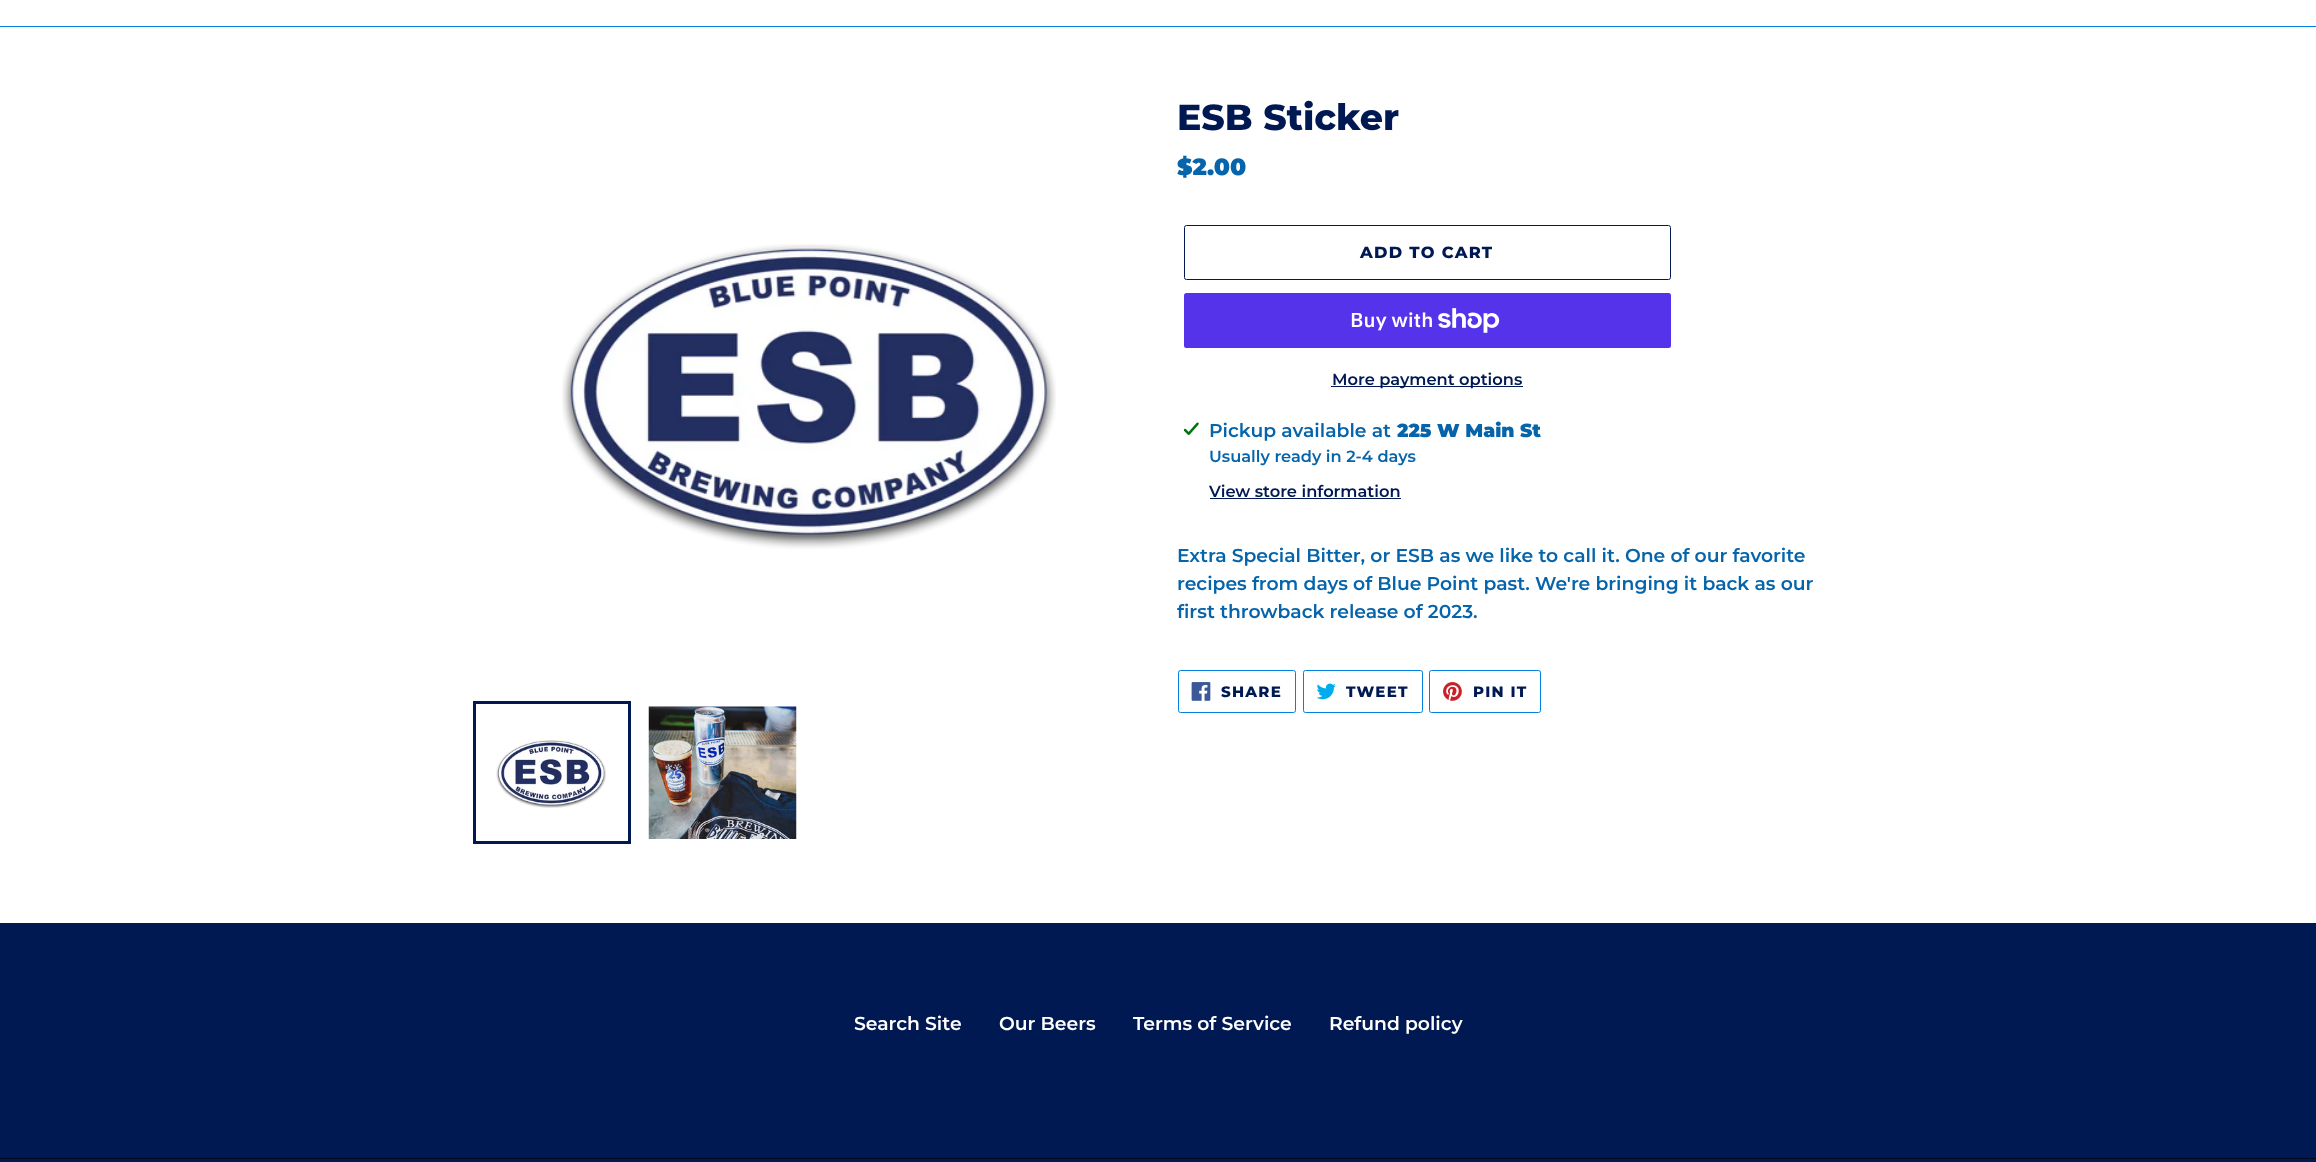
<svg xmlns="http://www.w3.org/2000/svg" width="2316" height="1162">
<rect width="100%" height="100%" fill="#fff"/>
<rect y="26" width="2316" height="1" fill="#0081e2"/>
<image x="562" y="244" width="494" height="305" href="media/1.png"/>
<rect x="474.5" y="702.5" width="155" height="140" fill="none" stroke="#001952" stroke-width="3"/>
<image x="496" y="740" width="110" height="68" href="media/2.png"/>
<image x="648" y="706" width="149" height="133" href="media/3.png"/>
<text x="1177" y="130" style="font-family:Montserrat;font-size:36.25px;font-weight:800;fill:#001952">ESB Sticker</text>
<text x="1177" y="175" style="font-family:Montserrat;font-size:23.5px;font-weight:900;fill:#0664ab">$2.00</text>
<rect x="1184.5" y="225.5" width="486" height="54" rx="2" fill="none" stroke="#001952"/>
<text x="1360" y="258" style="font-family:Montserrat;font-size:16.25px;font-weight:800;letter-spacing:1.25px;fill:#001952">ADD TO CART</text>
<rect x="1184" y="293" width="487" height="55" rx="2.5" fill="#5433eb"/>
<text x="1350" y="327" style="font-family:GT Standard;font-size:20px;font-weight:600;fill:#fff">Buy with</text>
<image x="1438" y="308" width="62" height="25" href="media/4.png"/>
<rect x="1331" y="386" width="192" height="1" fill="#001952"/>
<text x="1332" y="385" style="font-family:Montserrat;font-size:16.25px;font-weight:600;fill:#001952">More payment options</text>
<image x="1184" y="422" width="15" height="13" href="media/5.png"/>
<text x="1209" y="437" style="font-family:Montserrat;font-size:18.75px;font-weight:600;fill:#0664ab">Pickup available at</text>
<text x="1397" y="437" style="font-family:Montserrat;font-size:18.75px;font-weight:900;fill:#0664ab">225 W Main St</text>
<text x="1209" y="462" style="font-family:Montserrat;font-size:16.25px;font-weight:600;fill:#0664ab">Usually ready in 2-4 days</text>
<text x="1209" y="497" style="font-family:Montserrat;font-size:16.25px;font-weight:600;fill:#001952">View store information</text>
<rect x="1210" y="498" width="191" height="1" fill="#001952"/>
<text x="1177" y="562" style="font-family:Montserrat;font-size:18.75px;font-weight:600;fill:#0664ab">Extra Special Bitter, or ESB as we like to call it. One of our favorite</text>
<text x="1177" y="590" style="font-family:Montserrat;font-size:18.75px;font-weight:600;fill:#0664ab">recipes from days of Blue Point past. We're bringing it back as our</text>
<text x="1177" y="618" style="font-family:Montserrat;font-size:18.75px;font-weight:600;fill:#0664ab">first throwback release of 2023.</text>
<rect x="1178.5" y="670.5" width="117" height="42" rx="2" fill="none" stroke="#0081e2"/>
<image x="1191" y="682" width="20" height="19" href="media/6.png"/>
<text x="1221" y="697" style="font-family:Montserrat;font-size:15px;font-weight:800;letter-spacing:1.25px;fill:#001952">SHARE</text>
<rect x="1303.5" y="670.5" width="119" height="42" rx="2" fill="none" stroke="#0081e2"/>
<image x="1316" y="683" width="20" height="17" href="media/7.png"/>
<text x="1346" y="697" style="font-family:Montserrat;font-size:15px;font-weight:800;letter-spacing:1.25px;fill:#001952">TWEET</text>
<rect x="1429.5" y="670.5" width="111" height="42" rx="2" fill="none" stroke="#0081e2"/>
<image x="1443" y="682" width="19" height="19" href="media/8.png"/>
<text x="1473" y="697" style="font-family:Montserrat;font-size:15px;font-weight:800;letter-spacing:1.25px;fill:#001952">PIN IT</text>
<rect y="923" width="2316" height="239" fill="#001952"/>
<text x="854" y="1030" style="font-family:Montserrat;font-size:18.75px;font-weight:600;fill:#fff">Search Site</text>
<text x="999" y="1030" style="font-family:Montserrat;font-size:18.75px;font-weight:600;fill:#fff">Our Beers</text>
<text x="1133" y="1030" style="font-family:Montserrat;font-size:18.75px;font-weight:600;fill:#fff">Terms of Service</text>
<text x="1329" y="1030" style="font-family:Montserrat;font-size:18.75px;font-weight:600;fill:#fff">Refund policy</text>
<rect y="1158" width="2316" height="1" fill="#00091f"/>
</svg>
